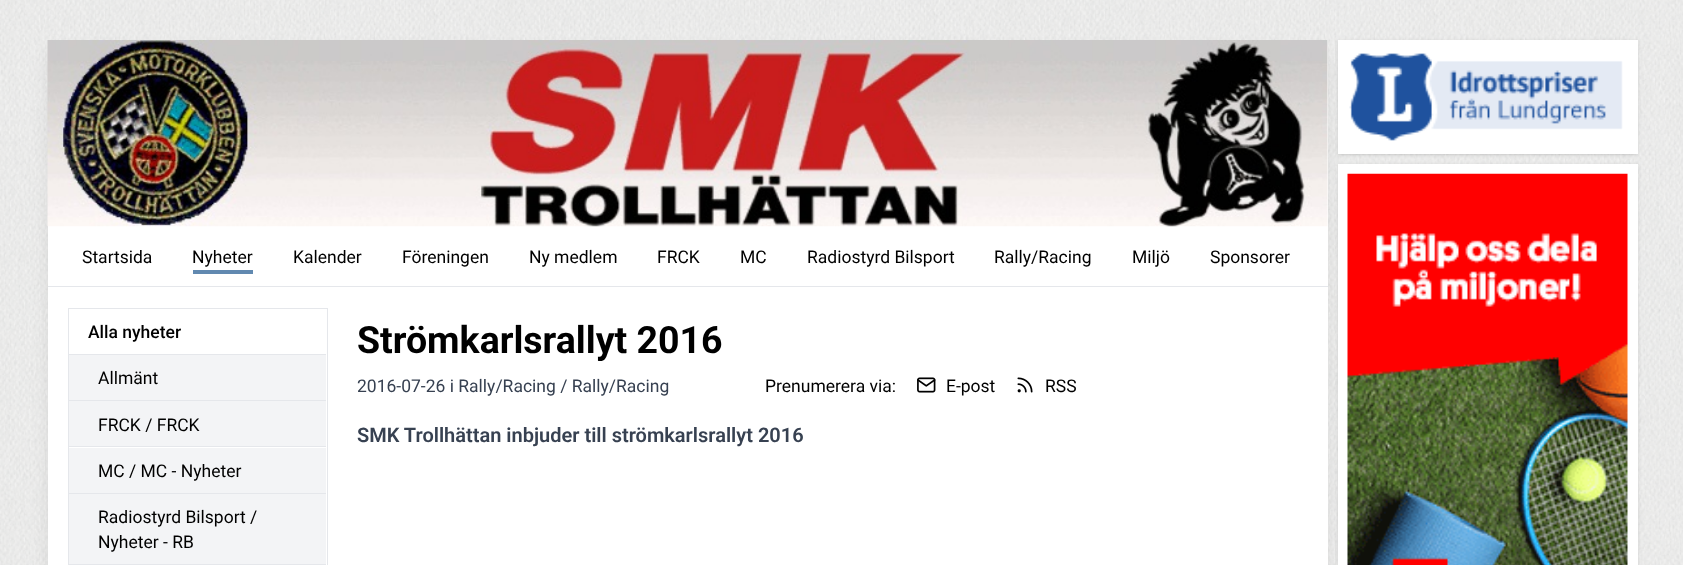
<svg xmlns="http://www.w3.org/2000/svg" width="1683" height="565">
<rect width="100%" height="100%" fill="#fff"/>
<image x="0" y="0" width="1683" height="565" href="media/1.png"/>
<rect x="51" y="56" width="1273" height="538" fill="#0000001a" filter="blur(9.5px)"/>
<rect x="48" y="40" width="1280" height="525" fill="#fff"/>
<image x="47" y="40" width="1281" height="187" href="media/2.png"/>
<rect x="48" y="286" width="1280" height="1" fill="#e5e7eb"/>
<text x="82" y="263" style="font-family:Roboto;font-size:17.5px;fill:#000">Startsida</text>
<rect x="193" y="270" width="60" height="4" fill="#6189b0"/>
<text x="192" y="263" style="font-family:Roboto;font-size:17.5px;fill:#000">Nyheter</text>
<text x="293" y="263" style="font-family:Roboto;font-size:17.5px;fill:#000">Kalender</text>
<text x="402" y="263" style="font-family:Roboto;font-size:17.5px;fill:#000">Föreningen</text>
<text x="529" y="263" style="font-family:Roboto;font-size:17.5px;fill:#000">Ny medlem</text>
<text x="657" y="263" style="font-family:Roboto;font-size:17.5px;fill:#000">FRCK</text>
<text x="740" y="263" style="font-family:Roboto;font-size:17.5px;fill:#000">MC</text>
<text x="807" y="263" style="font-family:Roboto;font-size:17.5px;fill:#000">Radiostyrd Bilsport</text>
<text x="994" y="263" style="font-family:Roboto;font-size:17.5px;fill:#000">Rally/Racing</text>
<text x="1132" y="263" style="font-family:Roboto;font-size:17.5px;fill:#000">Miljö</text>
<text x="1210" y="263" style="font-family:Roboto;font-size:17.5px;fill:#000">Sponsorer</text>
<rect x="68.5" y="308.5" width="259" height="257" fill="none" stroke="#e5e7eb"/>
<text x="88" y="338" style="font-family:Roboto;font-size:17.5px;font-weight:500;fill:#000">Alla nyheter</text>
<rect x="69" y="354" width="257" height="1" fill="#e5e7eb"/>
<rect x="69" y="355" width="257" height="45" fill="#f3f4f6"/>
<text x="98" y="384" style="font-family:Roboto;font-size:17.5px;fill:#000">Allmänt</text>
<rect x="69" y="400" width="257" height="1" fill="#e5e7eb"/>
<rect x="69" y="401" width="257" height="45" fill="#f3f4f6"/>
<text x="98" y="431" style="font-family:Roboto;font-size:17.5px;fill:#000">FRCK / FRCK</text>
<rect x="69" y="446" width="257" height="1" fill="#e5e7eb"/>
<rect x="69" y="448" width="257" height="45" fill="#f3f4f6"/>
<text x="98" y="477" style="font-family:Roboto;font-size:17.5px;fill:#000">MC / MC - Nyheter</text>
<rect x="69" y="493" width="257" height="1" fill="#e5e7eb"/>
<rect x="69" y="494" width="257" height="70" fill="#f3f4f6"/>
<text x="98" y="523" style="font-family:Roboto;font-size:17.5px;fill:#000">Radiostyrd Bilsport /</text>
<text x="98" y="548" style="font-family:Roboto;font-size:17.5px;fill:#000">Nyheter - RB</text>
<rect x="69" y="564" width="257" height="1" fill="#e5e7eb"/>
<text x="357" y="353" style="font-family:Roboto;font-size:37.5px;font-weight:bold;fill:#000">Strömkarlsrallyt 2016</text>
<text x="357" y="392" style="font-family:Roboto;font-size:17.5px;fill:#374151">2016-07-26 i Rally/Racing / Rally/Racing</text>
<text x="765" y="392" style="font-family:Roboto;font-size:17.5px;fill:#000">Prenumerera via:</text>
<image x="917" y="377" width="19" height="16" href="media/3.png"/>
<text x="946" y="392" style="font-family:Roboto;font-size:17.5px;fill:#000">E-post</text>
<image x="1017" y="377" width="16" height="16" href="media/4.png"/>
<text x="1045" y="392" style="font-family:Roboto;font-size:17.5px;fill:#000">RSS</text>
<text x="357" y="442" style="font-family:Roboto;font-size:20px;font-weight:600;fill:#374151">SMK Trollhättan inbjuder till strömkarlsrallyt 2016</text>
<rect x="1339" y="43" width="297" height="111" fill="#0000001a" filter="blur(1px)"/>
<rect x="1338" y="41" width="300" height="114" fill="#0000001a" filter="blur(2px)"/>
<rect x="1338" y="40" width="300" height="114" fill="#fff"/>
<image x="1349" y="53" width="274" height="88" href="media/5.png"/>
<rect x="1338" y="165" width="300" height="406" fill="#0000001a" filter="blur(2px)"/>
<rect x="1338" y="164" width="300" height="401" fill="#fff"/>
<image x="1347" y="173" width="281" height="392" href="media/6.png"/>
</svg>
